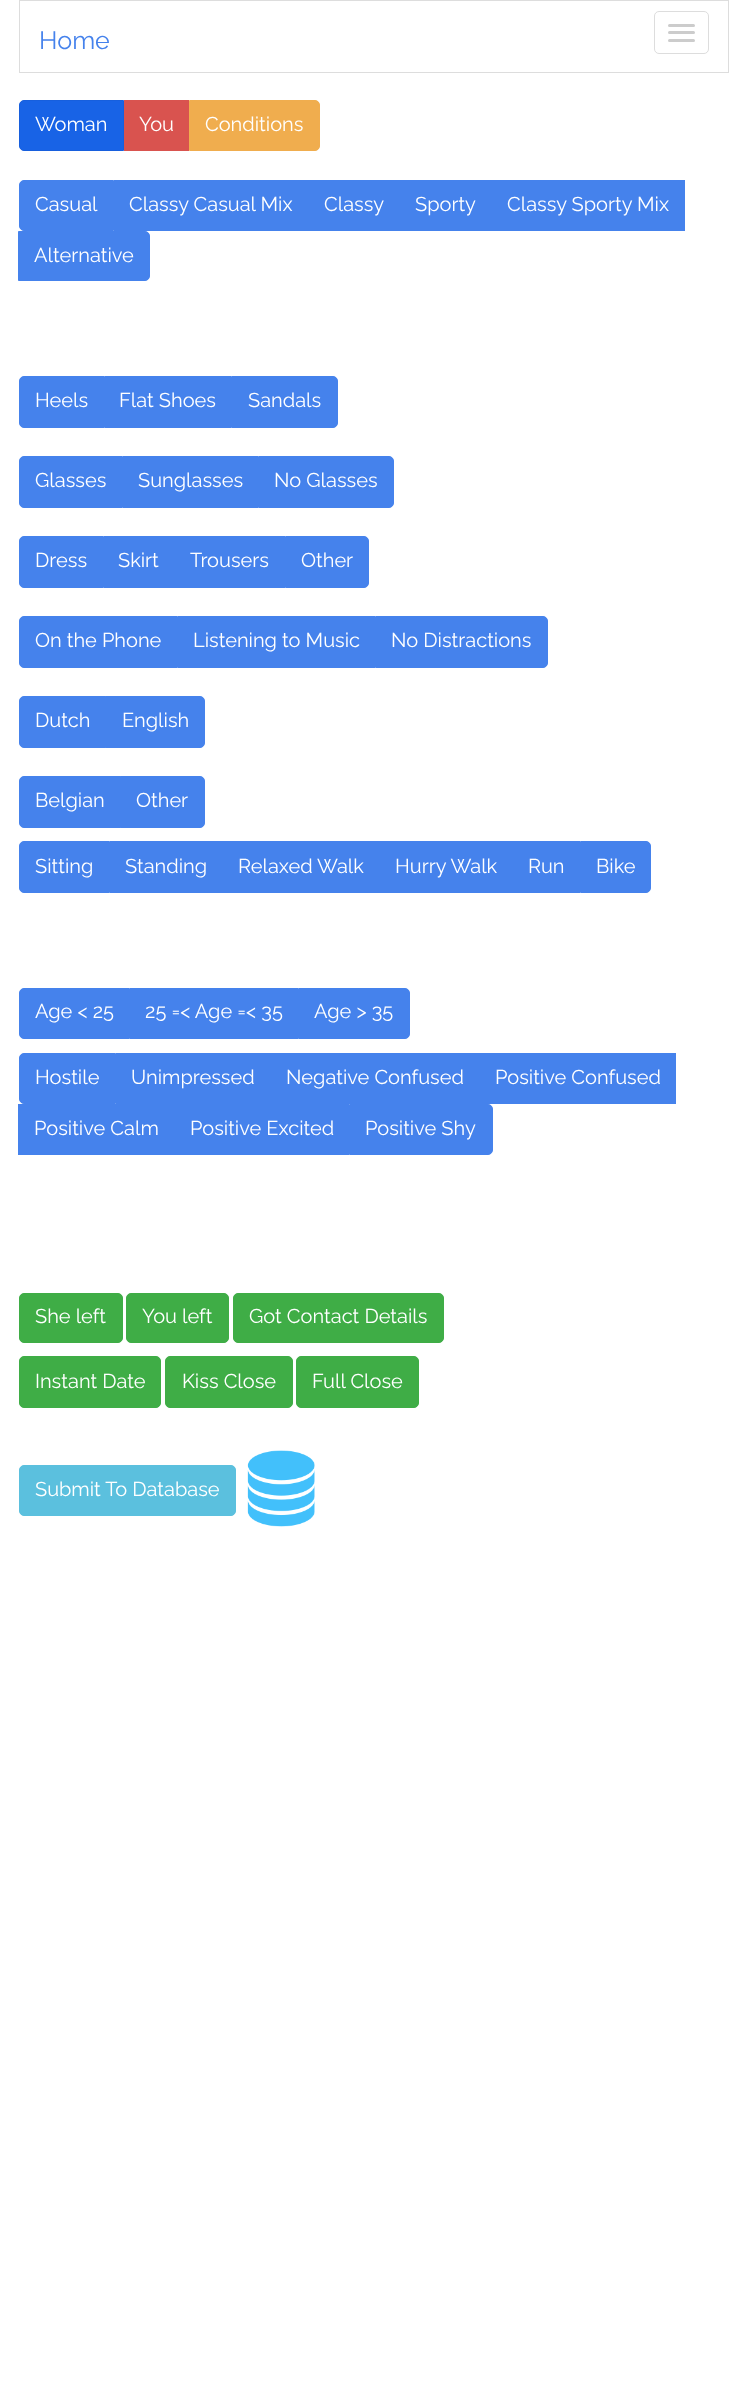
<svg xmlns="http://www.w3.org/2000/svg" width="747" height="2405">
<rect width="100%" height="100%" fill="#fff"/>
<rect x="19.5" y="0.5" width="709" height="72" fill="none" stroke="#ddd"/>
<text x="39" y="49" style="font-family:Raleway;font-size:25px;fill:#4582ec">Home</text>
<rect x="654.5" y="11.5" width="54" height="42" rx="4.5" fill="none" stroke="#ddd"/>
<rect x="668" y="24" width="27" height="3" rx="1.5" fill="#ccc"/>
<rect x="668" y="31" width="27" height="3" rx="1.5" fill="#ccc"/>
<rect x="668" y="39" width="27" height="3" rx="1.5" fill="#ccc"/>
<path d="M24 100.5h99.5v50h-99.5c-2.5 0-4.5-2-4.5-4.5v-41c0-2.5 2-4.5 4.5-4.5z" fill="#1863e6" stroke="#175fdd"/>
<text x="35" y="131" style="font-family:Raleway;font-size:20px;fill:#fff">Woman</text>
<rect x="124" y="100" width="65" height="51" fill="#d9534f"/>
<text x="139" y="131" style="font-family:Raleway;font-size:20px;fill:#fff">You</text>
<path d="M189.5 100.5h125.5c2.5 0 4.5 2 4.5 4.5v41c0 2.5-2 4.5-4.5 4.5h-125.5z" fill="#f0ad4e" stroke="#f0ad4e"/>
<text x="205" y="131" style="font-family:Raleway;font-size:20px;fill:#fff">Conditions</text>
<path d="M24 180.5h89.5v50h-89.5c-2.5 0-4.5-2-4.5-4.5v-41c0-2.5 2-4.5 4.5-4.5z" fill="#4582ec" stroke="#4582ec"/>
<text x="35" y="211" style="font-family:Raleway;font-size:20px;fill:#fff">Casual</text>
<rect x="114" y="180" width="571" height="51" fill="#4582ec"/>
<text x="129" y="211" style="font-family:Raleway;font-size:20px;fill:#fff">Classy Casual Mix</text>
<text x="324" y="211" style="font-family:Raleway;font-size:20px;fill:#fff">Classy</text>
<text x="415" y="211" style="font-family:Raleway;font-size:20px;fill:#fff">Sporty</text>
<text x="507" y="211" style="font-family:Raleway;font-size:20px;fill:#fff">Classy Sporty Mix</text>
<path d="M18.5 231.5h126.5c2.5 0 4.5 2 4.5 4.5v40c0 2.5-2 4.5-4.5 4.5h-126.5z" fill="#4582ec" stroke="#4582ec"/>
<text x="34" y="262" style="font-family:Raleway;font-size:20px;fill:#fff">Alternative</text>
<path d="M24 376.5h80.5v51h-80.5c-2.5 0-4.5-2-4.5-4.5v-42c0-2.5 2-4.5 4.5-4.5z" fill="#4582ec" stroke="#4582ec"/>
<text x="35" y="407" style="font-family:Raleway;font-size:20px;fill:#fff">Heels</text>
<rect x="105" y="376" width="126" height="52" fill="#4582ec"/>
<text x="119" y="407" style="font-family:Raleway;font-size:20px;fill:#fff">Flat Shoes</text>
<path d="M231.5 376.5h101.5c2.5 0 4.5 2 4.5 4.5v42c0 2.5-2 4.5-4.5 4.5h-101.5z" fill="#4582ec" stroke="#4582ec"/>
<text x="248" y="407" style="font-family:Raleway;font-size:20px;fill:#fff">Sandals</text>
<path d="M24 456.5h98.5v51h-98.5c-2.5 0-4.5-2-4.5-4.5v-42c0-2.5 2-4.5 4.5-4.5z" fill="#4582ec" stroke="#4582ec"/>
<text x="35" y="487" style="font-family:Raleway;font-size:20px;fill:#fff">Glasses</text>
<rect x="123" y="456" width="135" height="52" fill="#4582ec"/>
<text x="138" y="487" style="font-family:Raleway;font-size:20px;fill:#fff">Sunglasses</text>
<path d="M258.5 456.5h130.5c2.5 0 4.5 2 4.5 4.5v42c0 2.5-2 4.5-4.5 4.5h-130.5z" fill="#4582ec" stroke="#4582ec"/>
<text x="274" y="487" style="font-family:Raleway;font-size:20px;fill:#fff">No Glasses</text>
<path d="M24 536.5h79.5v51h-79.5c-2.5 0-4.5-2-4.5-4.5v-42c0-2.5 2-4.5 4.5-4.5z" fill="#4582ec" stroke="#4582ec"/>
<text x="35" y="567" style="font-family:Raleway;font-size:20px;fill:#fff">Dress</text>
<rect x="104" y="536" width="181" height="52" fill="#4582ec"/>
<text x="118" y="567" style="font-family:Raleway;font-size:20px;fill:#fff">Skirt</text>
<text x="190" y="567" style="font-family:Raleway;font-size:20px;fill:#fff">Trousers</text>
<path d="M285.5 536.5h78.5c2.5 0 4.5 2 4.5 4.5v42c0 2.5-2 4.5-4.5 4.5h-78.5z" fill="#4582ec" stroke="#4582ec"/>
<text x="301" y="567" style="font-family:Raleway;font-size:20px;fill:#fff">Other</text>
<path d="M24 616.5h153.5v51h-153.5c-2.5 0-4.5-2-4.5-4.5v-42c0-2.5 2-4.5 4.5-4.5z" fill="#4582ec" stroke="#4582ec"/>
<text x="35" y="647" style="font-family:Raleway;font-size:20px;fill:#fff">On the Phone</text>
<rect x="178" y="616" width="197" height="52" fill="#4582ec"/>
<text x="193" y="647" style="font-family:Raleway;font-size:20px;fill:#fff">Listening to Music</text>
<path d="M375.5 616.5h167.5c2.5 0 4.5 2 4.5 4.5v42c0 2.5-2 4.5-4.5 4.5h-167.5z" fill="#4582ec" stroke="#4582ec"/>
<text x="391" y="647" style="font-family:Raleway;font-size:20px;fill:#fff">No Distractions</text>
<path d="M24 696.5h81.5v51h-81.5c-2.5 0-4.5-2-4.5-4.5v-42c0-2.5 2-4.5 4.5-4.5z" fill="#4582ec" stroke="#4582ec"/>
<text x="35" y="727" style="font-family:Raleway;font-size:20px;fill:#fff">Dutch</text>
<path d="M105.5 696.5h94.5c2.5 0 4.5 2 4.5 4.5v42c0 2.5-2 4.5-4.5 4.5h-94.5z" fill="#4582ec" stroke="#4582ec"/>
<text x="122" y="727" style="font-family:Raleway;font-size:20px;fill:#fff">English</text>
<path d="M24 776.5h96.5v51h-96.5c-2.5 0-4.5-2-4.5-4.5v-42c0-2.5 2-4.5 4.5-4.5z" fill="#4582ec" stroke="#4582ec"/>
<text x="35" y="807" style="font-family:Raleway;font-size:20px;fill:#fff">Belgian</text>
<path d="M120.5 776.5h79.5c2.5 0 4.5 2 4.5 4.5v42c0 2.5-2 4.5-4.5 4.5h-79.5z" fill="#4582ec" stroke="#4582ec"/>
<text x="136" y="807" style="font-family:Raleway;font-size:20px;fill:#fff">Other</text>
<path d="M24 841.5h85.5v51h-85.5c-2.5 0-4.5-2-4.5-4.5v-42c0-2.5 2-4.5 4.5-4.5z" fill="#4582ec" stroke="#4582ec"/>
<text x="35" y="873" style="font-family:Raleway;font-size:20px;fill:#fff">Sitting</text>
<rect x="110" y="841" width="470" height="52" fill="#4582ec"/>
<text x="125" y="873" style="font-family:Raleway;font-size:20px;fill:#fff">Standing</text>
<text x="238" y="873" style="font-family:Raleway;font-size:20px;fill:#fff">Relaxed Walk</text>
<text x="395" y="873" style="font-family:Raleway;font-size:20px;fill:#fff">Hurry Walk</text>
<text x="528" y="873" style="font-family:Raleway;font-size:20px;fill:#fff">Run</text>
<path d="M580.5 841.5h65.5c2.5 0 4.5 2 4.5 4.5v42c0 2.5-2 4.5-4.5 4.5h-65.5z" fill="#4582ec" stroke="#4582ec"/>
<text x="596" y="873" style="font-family:Raleway;font-size:20px;fill:#fff">Bike</text>
<path d="M24 988.5h105.5v50h-105.5c-2.5 0-4.5-2-4.5-4.5v-41c0-2.5 2-4.5 4.5-4.5z" fill="#4582ec" stroke="#4582ec"/>
<text x="35" y="1018" style="font-family:Raleway;font-size:20px;fill:#fff">Age &lt; 25</text>
<rect x="130" y="988" width="168" height="51" fill="#4582ec"/>
<text x="145" y="1018" style="font-family:Raleway;font-size:20px;fill:#fff">25 =&lt; Age =&lt; 35</text>
<path d="M298.5 988.5h106.5c2.5 0 4.5 2 4.5 4.5v41c0 2.5-2 4.5-4.5 4.5h-106.5z" fill="#4582ec" stroke="#4582ec"/>
<text x="314" y="1018" style="font-family:Raleway;font-size:20px;fill:#fff">Age &gt; 35</text>
<path d="M24 1053.5h91.5v50h-91.5c-2.5 0-4.5-2-4.5-4.5v-41c0-2.5 2-4.5 4.5-4.5z" fill="#4582ec" stroke="#4582ec"/>
<text x="35" y="1084" style="font-family:Raleway;font-size:20px;fill:#fff">Hostile</text>
<rect x="116" y="1053" width="560" height="51" fill="#4582ec"/>
<text x="131" y="1084" style="font-family:Raleway;font-size:20px;fill:#fff">Unimpressed</text>
<text x="286" y="1084" style="font-family:Raleway;font-size:20px;fill:#fff">Negative Confused</text>
<text x="495" y="1084" style="font-family:Raleway;font-size:20px;fill:#fff">Positive Confused</text>
<rect x="18" y="1104" width="331" height="51" fill="#4582ec"/>
<text x="34" y="1135" style="font-family:Raleway;font-size:20px;fill:#fff">Positive Calm</text>
<text x="190" y="1135" style="font-family:Raleway;font-size:20px;fill:#fff">Positive Excited</text>
<path d="M349.5 1104.5h138.5c2.5 0 4.5 2 4.5 4.5v41c0 2.5-2 4.5-4.5 4.5h-138.5z" fill="#4582ec" stroke="#4582ec"/>
<text x="365" y="1135" style="font-family:Raleway;font-size:20px;fill:#fff">Positive Shy</text>
<rect x="19.5" y="1293.5" width="103" height="49" rx="4.5" fill="#3fad46" stroke="#3fad46"/>
<text x="35" y="1323" style="font-family:Raleway;font-size:20px;fill:#fff">She left</text>
<rect x="126.5" y="1293.5" width="102" height="49" rx="4.5" fill="#3fad46" stroke="#3fad46"/>
<text x="142" y="1323" style="font-family:Raleway;font-size:20px;fill:#fff">You left</text>
<rect x="233.5" y="1293.5" width="210" height="49" rx="4.5" fill="#3fad46" stroke="#3fad46"/>
<text x="249" y="1323" style="font-family:Raleway;font-size:20px;fill:#fff">Got Contact Details</text>
<rect x="19.5" y="1356.5" width="141" height="51" rx="4.5" fill="#3fad46" stroke="#3fad46"/>
<text x="35" y="1388" style="font-family:Raleway;font-size:20px;fill:#fff">Instant Date</text>
<rect x="165.5" y="1356.5" width="127" height="51" rx="4.5" fill="#3fad46" stroke="#3fad46"/>
<text x="182" y="1388" style="font-family:Raleway;font-size:20px;fill:#fff">Kiss Close</text>
<rect x="296.5" y="1356.5" width="122" height="51" rx="4.5" fill="#3fad46" stroke="#3fad46"/>
<text x="312" y="1388" style="font-family:Raleway;font-size:20px;fill:#fff">Full Close</text>
<rect x="19.5" y="1465.5" width="216" height="50" rx="4.5" fill="#5bc0de" stroke="#5bc0de"/>
<text x="35" y="1496" style="font-family:Raleway;font-size:20px;fill:#fff">Submit To Database</text>
<image x="247" y="1450" width="68" height="77" href="media/1.png"/>
</svg>
